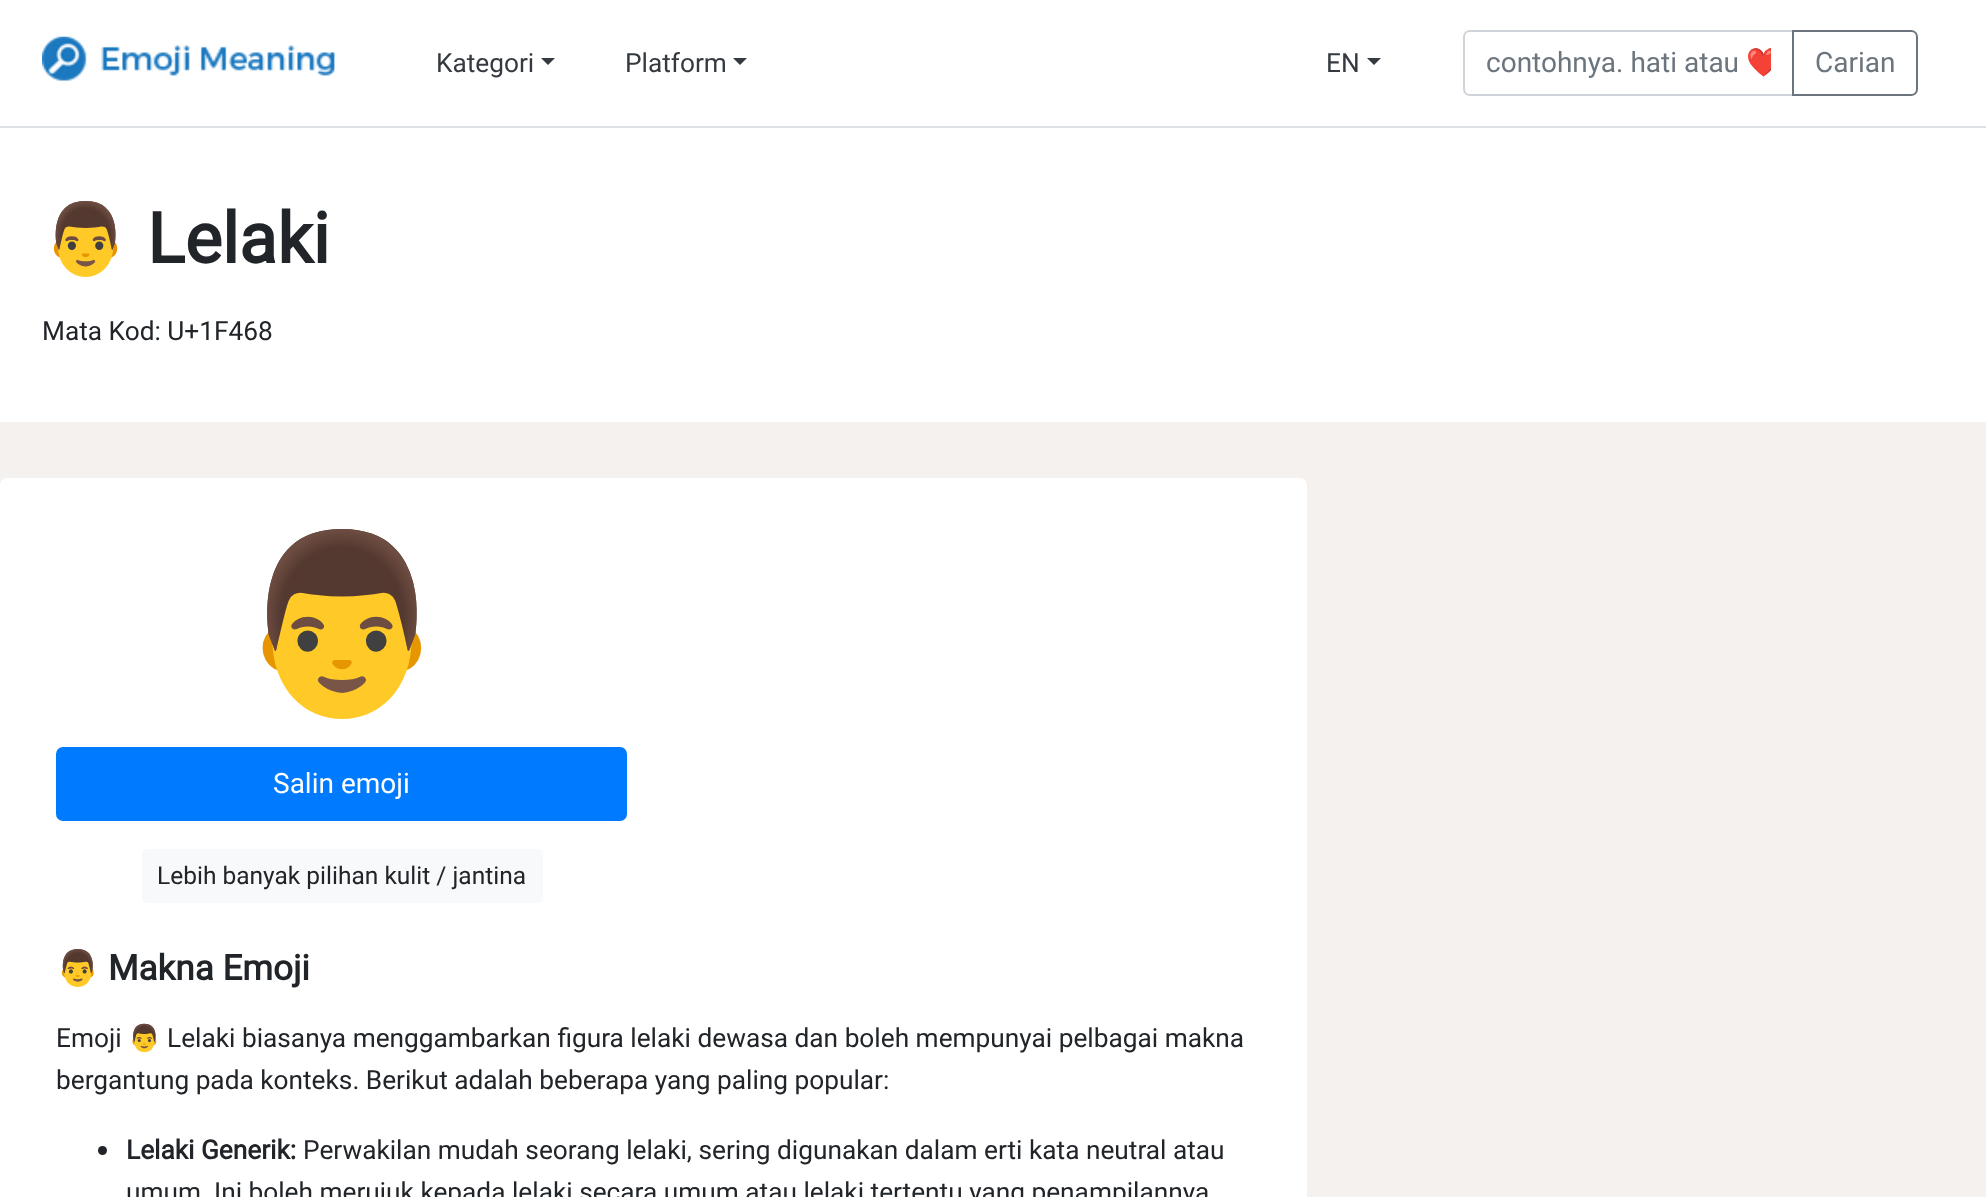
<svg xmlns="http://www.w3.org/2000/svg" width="1986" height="1197">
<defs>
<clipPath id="clip1"><rect x="1486" y="46" width="285" height="33"/></clipPath>
</defs>
<rect width="100%" height="100%" fill="#f4f1ef"/>
<rect width="1986" height="126" fill="#fff"/>
<rect y="126" width="1986" height="2" fill="#dee2e6"/>
<image x="42" y="36" width="293" height="45" href="media/1.png"/>
<text x="436" y="72" style="font-family:Roboto;font-size:26.25px;fill:#343a40">Kategori</text>
<path d="M541 58h14l-7 7z" fill="#343a40"/>
<text x="625" y="72" style="font-family:Roboto;font-size:26.25px;fill:#343a40">Platform</text>
<path d="M733 58h14l-7 7z" fill="#343a40"/>
<text x="1326" y="72" style="font-family:Roboto;font-size:26.25px;fill:#343a40">EN</text>
<path d="M1367 58h14l-7 7z" fill="#343a40"/>
<path d="M1470 31h323v64h-323c-3.5 0-6-2.5-6-6v-52c0-3.5 2.5-6 6-6z" fill="none" stroke="#ced4da" stroke-width="2"/>
<text x="1486" y="72" style="font-family:Roboto;font-size:28px;fill:#6c757d">contohnya. hati atau</text>
<g clip-path="url(#clip1)">
<text x="1746" y="72" style="font-family:Noto Color Emoji;font-size:28px;fill:#6c757d">❤️</text>
</g>
<path d="M1793 31h118c3.5 0 6 2.5 6 6v52c0 3.5-2.5 6-6 6h-118z" fill="none" stroke="#6c757d" stroke-width="2"/>
<text x="1815" y="72" style="font-family:Roboto;font-size:28px;fill:#6c757d">Carian</text>
<rect y="128" width="1986" height="294" fill="#fff"/>
<text x="42" y="263" style="font-family:Noto Color Emoji;font-size:70px;font-weight:bold;fill:#212529">👨</text>
<text x="147" y="263" style="font-family:Roboto;font-size:70px;font-weight:bold;fill:#212529">Lelaki</text>
<text x="42" y="340" style="font-family:Roboto;font-size:26.25px;fill:#212529">Mata Kod: U+1F468</text>
<rect y="478" width="1307" height="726" rx="7" fill="#fff"/>
<text x="233" y="684" style="font-family:Noto Color Emoji;font-size:175px;fill:#212529">👨</text>
<rect x="57" y="748" width="569" height="72" rx="6" fill="#007bff" stroke="#007bff" stroke-width="2"/>
<text x="273" y="793" style="font-family:Roboto;font-size:28px;fill:#fff">Salin emoji</text>
<rect x="142" y="849" width="401" height="54" rx="5" fill="#f8f9fa"/>
<text x="157" y="884" style="font-family:Roboto;font-size:24.5px;fill:#212529">Lebih banyak pilihan kulit / jantina</text>
<text x="56" y="980" style="font-family:Noto Color Emoji;font-size:35px;font-weight:bold;fill:#212529">👨</text>
<text x="108" y="980" style="font-family:Roboto;font-size:35px;font-weight:bold;fill:#212529">Makna Emoji</text>
<text x="56" y="1047" style="font-family:Roboto;font-size:26.25px;fill:#212529">Emoji</text>
<text x="128" y="1047" style="font-family:Noto Color Emoji;font-size:26.25px;fill:#212529">👨</text>
<text x="167" y="1047" style="font-family:Roboto;font-size:26.25px;fill:#212529">Lelaki biasanya menggambarkan figura lelaki dewasa dan boleh mempunyai pelbagai makna</text>
<text x="56" y="1089" style="font-family:Roboto;font-size:26.25px;fill:#212529">bergantung pada konteks. Berikut adalah beberapa yang paling popular:</text>
<circle cx="102.5" cy="1150.5" r="4.5" fill="#212529"/>
<text x="126" y="1159" style="font-family:Roboto;font-size:26.25px;font-weight:bold;fill:#212529">Lelaki Generik:</text>
<text x="303" y="1159" style="font-family:Roboto;font-size:26.25px;fill:#212529">Perwakilan mudah seorang lelaki, sering digunakan dalam erti kata neutral atau</text>
<text x="126" y="1201" style="font-family:Roboto;font-size:26.25px;fill:#212529">umum</text>
<text x="214" y="1201" style="font-family:Roboto;font-size:26.25px;fill:#212529">Ini boleh merujuk kepada lelaki secara umum atau lelaki tertentu yang penampilannya</text>
</svg>
